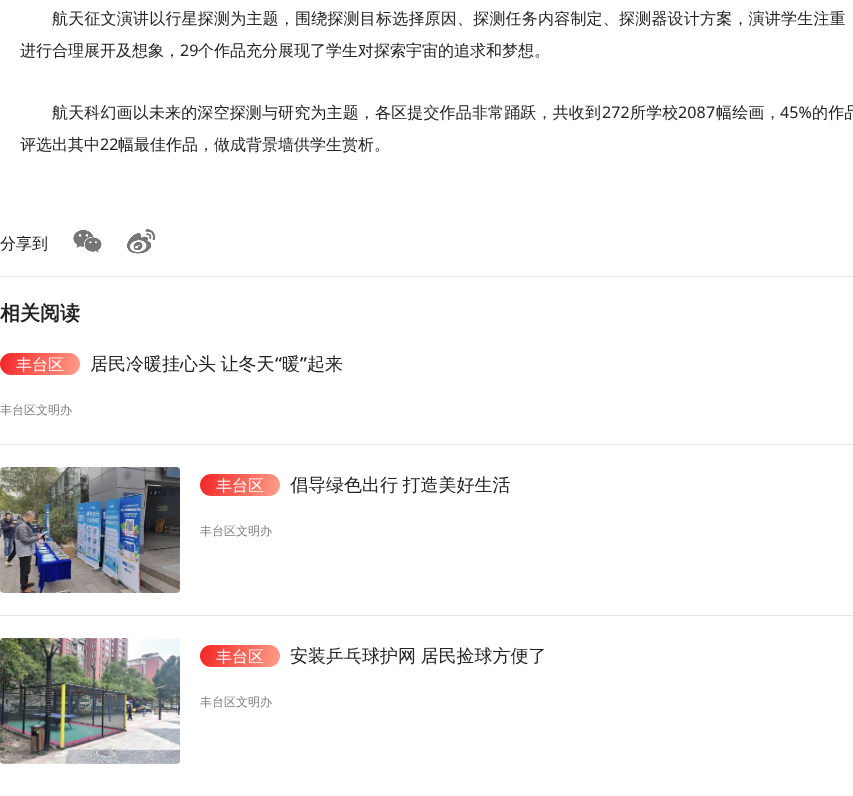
<svg xmlns="http://www.w3.org/2000/svg" width="853" height="796">
<defs>
<linearGradient id="g1" gradientUnits="userSpaceOnUse" x1="79" y1="377" x2="0.6" y2="351"><stop offset="0" stop-color="#ffa08a"/><stop offset="1" stop-color="#f42324"/></linearGradient>
<linearGradient id="g2" gradientUnits="userSpaceOnUse" x1="279" y1="498" x2="201" y2="472"><stop offset="0" stop-color="#ffa08a"/><stop offset="1" stop-color="#f42324"/></linearGradient>
<linearGradient id="g3" gradientUnits="userSpaceOnUse" x1="279" y1="669" x2="201" y2="643"><stop offset="0" stop-color="#ffa08a"/><stop offset="1" stop-color="#f42324"/></linearGradient>
</defs>
<rect width="100%" height="100%" fill="#fff"/>
<text x="52" y="24" style="font-family:WenQuanYi Zen Hei;font-size:16px;font-weight:500;letter-spacing:0.2px;fill:#222">航天征文演讲以行星探测为主题，围绕探测目标选择原因、探测任务内容制定、探测器设计方案，演讲学生注重</text>
<text x="20" y="56" style="font-family:WenQuanYi Zen Hei;font-size:16px;font-weight:500;fill:#222">进行合理展开及想象，</text>
<text x="180" y="56" style="font-family:Noto Sans;font-size:16px;fill:#222">29</text>
<text x="198" y="56" style="font-family:WenQuanYi Zen Hei;font-size:16px;font-weight:500;fill:#222">个作品充分展现了学生对探索宇宙的追求和梦想。</text>
<text x="52" y="118" style="font-family:WenQuanYi Zen Hei;font-size:16px;font-weight:500;letter-spacing:0.15px;fill:#222">航天科幻画以未来的深空探测与研究为主题，各区提交作品非常踊跃，共收到</text>
<text x="602" y="118" style="font-family:Noto Sans;font-size:16px;letter-spacing:0.15px;fill:#222">272</text>
<text x="630" y="118" style="font-family:WenQuanYi Zen Hei;font-size:16px;font-weight:500;letter-spacing:0.15px;fill:#222">所学校</text>
<text x="678" y="118" style="font-family:Noto Sans;font-size:16px;letter-spacing:0.15px;fill:#222">2087</text>
<text x="716" y="118" style="font-family:WenQuanYi Zen Hei;font-size:16px;font-weight:500;letter-spacing:0.15px;fill:#222">幅绘画，</text>
<text x="780" y="118" style="font-family:Noto Sans;font-size:16px;letter-spacing:0.15px;fill:#222">45%</text>
<text x="812" y="118" style="font-family:WenQuanYi Zen Hei;font-size:16px;font-weight:500;letter-spacing:0.15px;fill:#222">的作品</text>
<text x="20" y="150" style="font-family:WenQuanYi Zen Hei;font-size:16px;font-weight:500;fill:#222">评选出其中</text>
<text x="100" y="150" style="font-family:Noto Sans;font-size:16px;fill:#222">22</text>
<text x="118" y="150" style="font-family:WenQuanYi Zen Hei;font-size:16px;font-weight:500;fill:#222">幅最佳作品，做成背景墙供学生赏析。</text>
<rect y="276" width="853" height="1" fill="#e5e5e5"/>
<text x="0" y="249" style="font-family:WenQuanYi Zen Hei;font-size:16px;font-weight:500;fill:#222">分享到</text>
<image x="73" y="230" width="29" height="23" href="media/1.png"/>
<image x="127" y="229" width="28" height="25" href="media/2.png"/>
<text x="0" y="320" style="font-family:WenQuanYi Zen Hei;font-size:20px;font-weight:bold;fill:#222">相关阅读</text>
<rect y="353" width="80" height="22" rx="11" fill="url(#g1)"/>
<text x="16" y="370" style="font-family:WenQuanYi Zen Hei;font-size:16px;font-weight:500;fill:#fff">丰台区</text>
<text x="90" y="370" word-spacing="-1" style="font-family:WenQuanYi Zen Hei;font-size:18px;font-weight:500;fill:#222">居民冷暖挂心头 让冬天</text>
<text x="275" y="370" style="font-family:Noto Sans;font-size:18px;font-weight:500;fill:#222">“</text>
<text x="282" y="370" style="font-family:WenQuanYi Zen Hei;font-size:18px;font-weight:500;fill:#222">暖</text>
<text x="300" y="370" style="font-family:Noto Sans;font-size:18px;font-weight:500;fill:#222">”</text>
<text x="307" y="370" style="font-family:WenQuanYi Zen Hei;font-size:18px;font-weight:500;fill:#222">起来</text>
<text x="0" y="414" style="font-family:WenQuanYi Zen Hei;font-size:12px;font-weight:500;fill:#7d7c7c">丰台区文明办</text>
<rect y="444" width="853" height="1" fill="#e5e5e5"/>
<image x="0" y="467" width="180" height="126" href="media/3.png"/>
<rect x="200" y="474" width="80" height="22" rx="11" fill="url(#g2)"/>
<text x="216" y="491" style="font-family:WenQuanYi Zen Hei;font-size:16px;font-weight:500;fill:#fff">丰台区</text>
<text x="290" y="491" word-spacing="-1" style="font-family:WenQuanYi Zen Hei;font-size:18px;font-weight:500;fill:#222">倡导绿色出行 打造美好生活</text>
<text x="200" y="535" style="font-family:WenQuanYi Zen Hei;font-size:12px;font-weight:500;fill:#7d7c7c">丰台区文明办</text>
<rect y="615" width="853" height="1" fill="#e5e5e5"/>
<image x="0" y="638" width="180" height="126" href="media/4.png"/>
<rect x="200" y="645" width="80" height="22" rx="11" fill="url(#g3)"/>
<text x="216" y="662" style="font-family:WenQuanYi Zen Hei;font-size:16px;font-weight:500;fill:#fff">丰台区</text>
<text x="290" y="662" word-spacing="-1" style="font-family:WenQuanYi Zen Hei;font-size:18px;font-weight:500;fill:#222">安装乒乓球护网 居民捡球方便了</text>
<text x="200" y="706" style="font-family:WenQuanYi Zen Hei;font-size:12px;font-weight:500;fill:#7d7c7c">丰台区文明办</text>
</svg>
